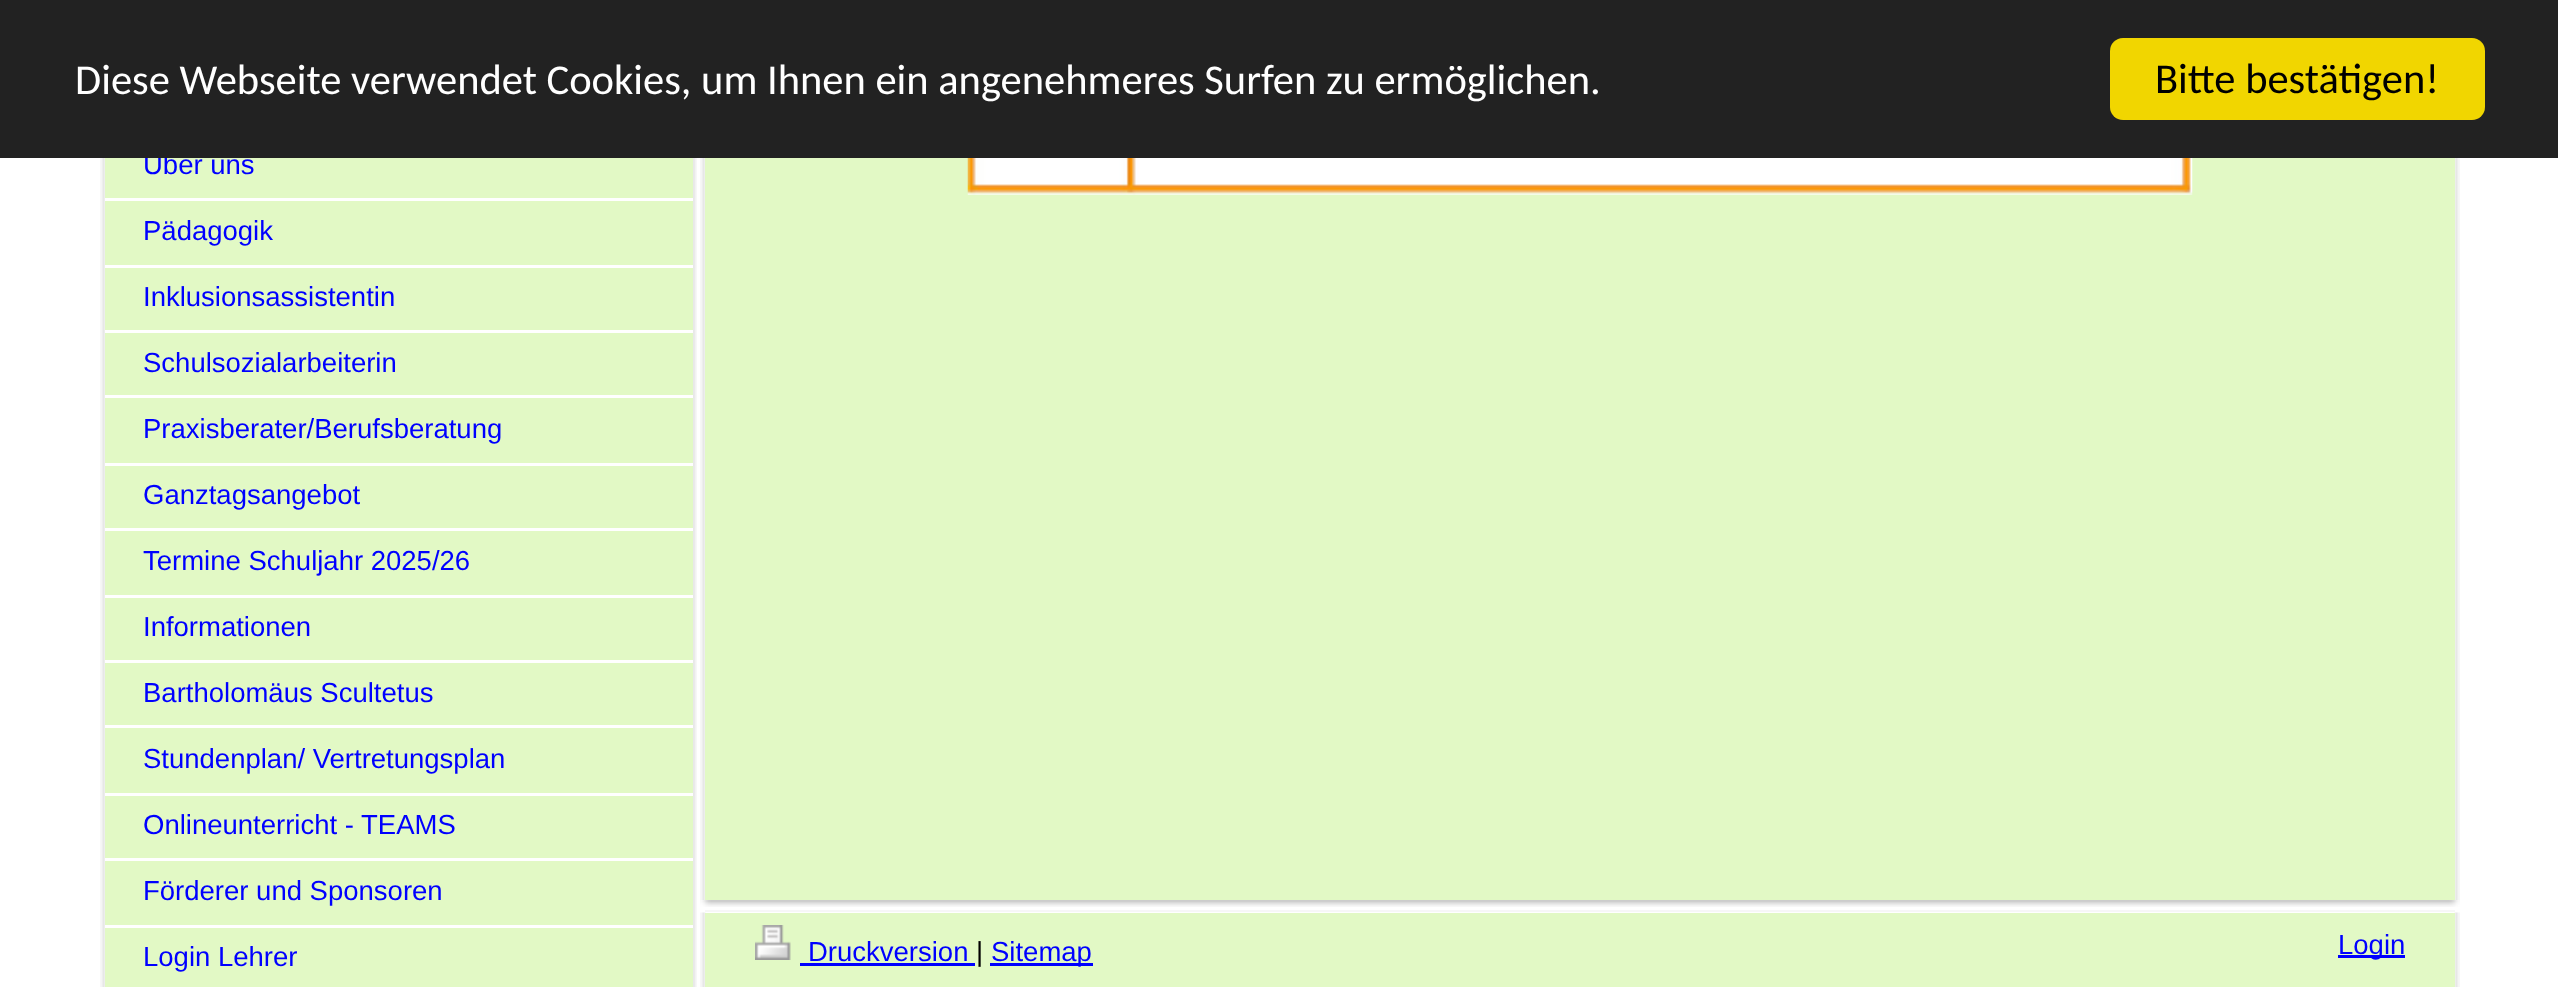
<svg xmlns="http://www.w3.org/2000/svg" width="2558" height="987">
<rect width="100%" height="100%" fill="#fff"/>
<image x="100" y="158" width="597" height="829" href="media/1.png"/>
<rect x="105" y="158" width="588" height="829" fill="#e2f9c5"/>
<text x="143" y="174" style="font-family:Liberation Sans;font-size:27.5px;fill:#00f">Über uns</text>
<rect width="2558" height="158" fill="#222"/>
<text x="75" y="94" style="font-family:Carlito;font-size:42.5px;fill:#fff">Diese Webseite verwendet Cookies, um Ihnen ein angenehmeres Surfen zu ermöglichen.</text>
<rect x="2110" y="38" width="375" height="82" rx="13" fill="#f1d600"/>
<text x="2155" y="93" style="font-family:Carlito;font-size:42.5px;fill:#000">Bitte bestätigen!</text>
<rect x="105" y="198" width="588" height="3" fill="#fff"/>
<rect x="105" y="265" width="588" height="3" fill="#fff"/>
<text x="143" y="240" style="font-family:Liberation Sans;font-size:27.5px;fill:#00f">Pädagogik</text>
<rect x="105" y="330" width="588" height="3" fill="#fff"/>
<text x="143" y="306" style="font-family:Liberation Sans;font-size:27.5px;fill:#00f">Inklusionsassistentin</text>
<rect x="105" y="395" width="588" height="3" fill="#fff"/>
<text x="143" y="372" style="font-family:Liberation Sans;font-size:27.5px;fill:#00f">Schulsozialarbeiterin</text>
<rect x="105" y="463" width="588" height="3" fill="#fff"/>
<text x="143" y="438" style="font-family:Liberation Sans;font-size:27.5px;fill:#00f">Praxisberater/Berufsberatung</text>
<rect x="105" y="528" width="588" height="3" fill="#fff"/>
<text x="143" y="504" style="font-family:Liberation Sans;font-size:27.5px;fill:#00f">Ganztagsangebot</text>
<rect x="105" y="595" width="588" height="3" fill="#fff"/>
<text x="143" y="570" style="font-family:Liberation Sans;font-size:27.5px;fill:#00f">Termine Schuljahr 2025/26</text>
<rect x="105" y="660" width="588" height="3" fill="#fff"/>
<text x="143" y="636" style="font-family:Liberation Sans;font-size:27.5px;fill:#00f">Informationen</text>
<rect x="105" y="725" width="588" height="3" fill="#fff"/>
<text x="143" y="702" style="font-family:Liberation Sans;font-size:27.5px;fill:#00f">Bartholomäus Scultetus</text>
<rect x="105" y="793" width="588" height="3" fill="#fff"/>
<text x="143" y="768" style="font-family:Liberation Sans;font-size:27.5px;fill:#00f">Stundenplan/ Vertretungsplan</text>
<rect x="105" y="858" width="588" height="3" fill="#fff"/>
<text x="143" y="834" style="font-family:Liberation Sans;font-size:27.5px;fill:#00f">Onlineunterricht - TEAMS</text>
<rect x="105" y="925" width="588" height="3" fill="#fff"/>
<text x="143" y="900" style="font-family:Liberation Sans;font-size:27.5px;fill:#00f">Förderer und Sponsoren</text>
<text x="143" y="966" style="font-family:Liberation Sans;font-size:27.5px;fill:#00f">Login Lehrer</text>
<image x="700" y="900" width="1760" height="7" href="media/2.png"/>
<image x="700" y="158" width="1760" height="742" href="media/3.png"/>
<rect x="705" y="158" width="1750" height="742" fill="#e2f9c5"/>
<image x="967" y="158" width="1226" height="37" href="media/4.png"/>
<rect x="705" y="910" width="1750" height="2" fill="#f7f7f7"/>
<image x="700" y="912" width="1760" height="75" href="media/5.png"/>
<rect x="705" y="913" width="1750" height="74" fill="#e2f9c5"/>
<image x="755" y="925" width="36" height="35" href="media/6.png"/>
<text x="808" y="961" style="font-family:Liberation Sans;font-size:27.5px;fill:#00f">Druckversion</text>
<rect x="800" y="963" width="175" height="3" fill="#00f"/>
<text x="976" y="961" style="font-family:Liberation Sans;font-size:27.5px;fill:#000">|</text>
<rect x="990" y="963" width="103" height="3" fill="#00f"/>
<text x="991" y="961" style="font-family:Liberation Sans;font-size:27.5px;fill:#00f">Sitemap</text>
<rect x="2338" y="955" width="67" height="3" fill="#00f"/>
<text x="2338" y="954" style="font-family:Liberation Sans;font-size:27.5px;fill:#00f">Login</text>
</svg>
